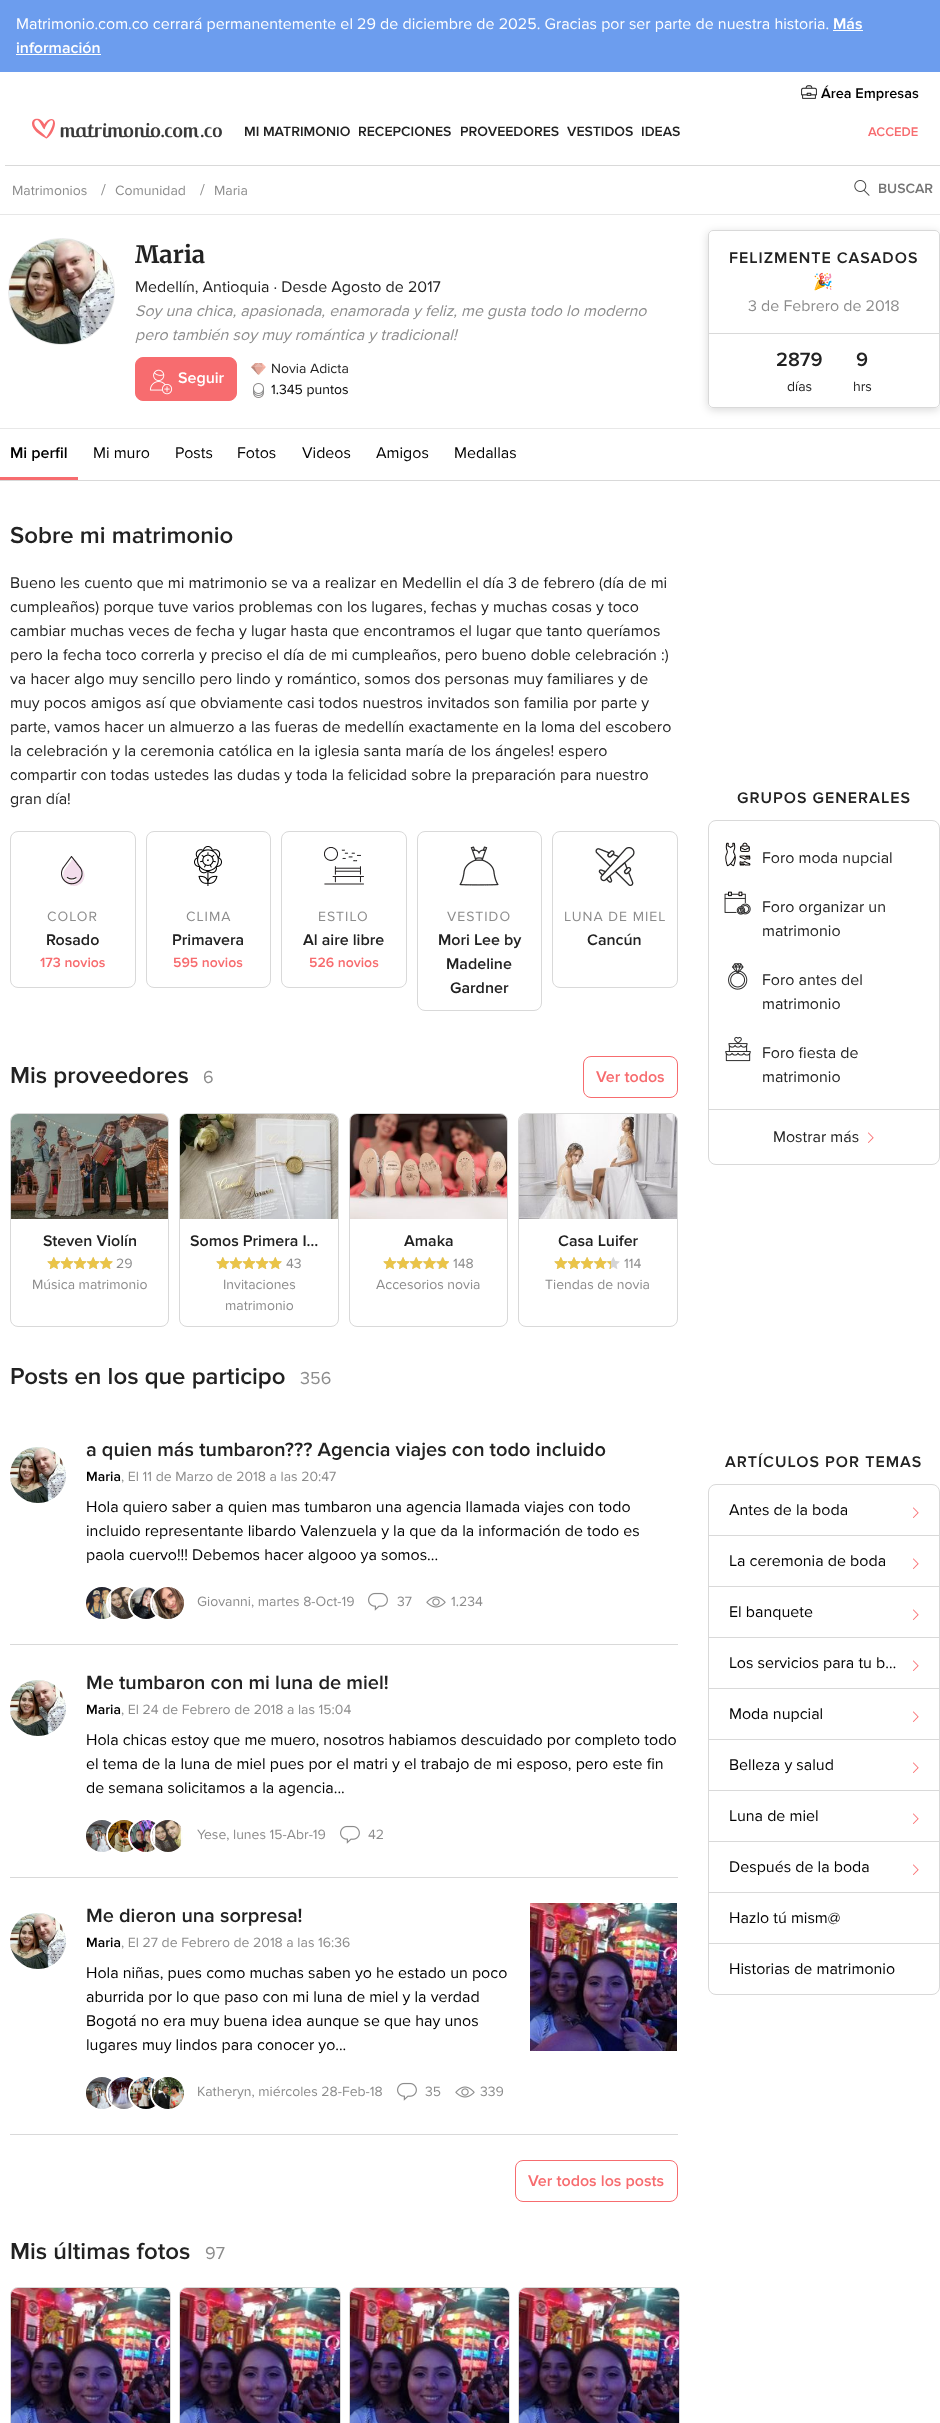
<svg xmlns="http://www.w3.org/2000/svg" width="940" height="2423">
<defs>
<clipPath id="clip1"><path d="M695 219h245v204h-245zm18 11h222c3 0 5 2 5 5v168c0 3-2 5-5 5h-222c-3 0-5-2-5-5v-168c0-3 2-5 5-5z" clip-rule="evenodd"/></clipPath>
</defs>
<rect width="100%" height="100%" fill="#fff"/>
<rect width="940" height="72" fill="#6c9dee"/>
<text x="16" y="29" style="font-family:Proxima Nova;font-size:16px;fill:#fff">Matrimonio.com.co cerrará permanentemente el 29 de diciembre de 2025. Gracias por ser parte de nuestra historia.</text>
<text x="833" y="29" style="font-family:Proxima Nova;font-size:16px;font-weight:600;fill:#fff">Más</text>
<rect x="833" y="30" width="30" height="1" fill="#fff"/>
<text x="16" y="53" style="font-family:Proxima Nova;font-size:16px;font-weight:600;fill:#fff">información</text>
<rect x="16" y="54" width="85" height="1" fill="#fff"/>
<image x="801" y="85" width="16" height="14" href="media/1.png"/>
<text x="821" y="98" style="font-family:Proxima Nova;font-size:14.5px;font-weight:600;fill:#000">Área Empresas</text>
<image x="32" y="118" width="190" height="21" href="media/2.png"/>
<text x="244" y="136" style="font-family:Proxima Nova;font-size:14px;font-weight:600;fill:#222">MI MATRIMONIO</text>
<text x="358" y="136" style="font-family:Proxima Nova;font-size:14px;font-weight:600;fill:#222">RECEPCIONES</text>
<text x="460" y="136" style="font-family:Proxima Nova;font-size:14px;font-weight:600;fill:#222">PROVEEDORES</text>
<text x="567" y="136" style="font-family:Proxima Nova;font-size:14px;font-weight:600;fill:#222">VESTIDOS</text>
<text x="641" y="136" style="font-family:Proxima Nova;font-size:14px;font-weight:600;fill:#222">IDEAS</text>
<text x="868" y="136" style="font-family:Proxima Nova;font-size:13px;font-weight:600;fill:#f76c6f">ACCEDE</text>
<rect x="5" y="165" width="935" height="1" fill="#d9d9d9"/>
<rect y="214" width="940" height="1" fill="#e7e7e7"/>
<text x="12" y="195" style="font-family:Proxima Nova;font-size:14px;fill:#8c8c8c">Matrimonios</text>
<text x="101" y="195" style="font-family:Proxima Nova;font-size:16px;fill:#8c8c8c">/</text>
<text x="115" y="195" style="font-family:Proxima Nova;font-size:14px;fill:#8c8c8c">Comunidad</text>
<text x="200" y="195" style="font-family:Proxima Nova;font-size:16px;fill:#8c8c8c">/</text>
<text x="214" y="195" style="font-family:Proxima Nova;font-size:14px;fill:#8c8c8c">Maria</text>
<image x="854" y="180" width="16" height="16" href="media/3.png"/>
<text x="878" y="193" style="font-family:Proxima Nova;font-size:14px;font-weight:600;fill:#757575">BUSCAR</text>
<circle cx="61.5" cy="291.5" r="53" fill="none" stroke="#e8e8e8"/>
<image x="9" y="239" width="105" height="105" href="media/4.png"/>
<text x="135" y="263" style="font-family:Merriweather;font-size:24px;font-weight:bold;fill:#222">Maria</text>
<text x="135" y="292" style="font-family:Proxima Nova;font-size:16px;fill:#222">Medellín, Antioquia · Desde Agosto de 2017</text>
<text x="135" y="316" style="font-family:Proxima Nova;font-size:16px;font-style:italic;fill:#8c8c8c">Soy una chica, apasionada, enamorada y feliz, me gusta todo lo moderno</text>
<text x="135" y="340" style="font-family:Proxima Nova;font-size:16px;font-style:italic;fill:#8c8c8c">pero también soy muy romántica y tradicional!</text>
<rect x="135.5" y="357.5" width="101" height="43" rx="7.5" fill="#f76c6f" stroke="#f76c6f"/>
<image x="149" y="369" width="24" height="26" href="media/5.png"/>
<text x="178" y="383" style="font-family:Proxima Nova;font-size:16px;font-weight:600;fill:#fff">Seguir</text>
<image x="251" y="363" width="15" height="12" href="media/6.png"/>
<text x="271" y="373" style="font-family:Proxima Nova;font-size:14px;fill:#222">Novia Adicta</text>
<image x="253" y="383" width="11" height="15" href="media/7.png"/>
<text x="271" y="394" style="font-family:Proxima Nova;font-size:14px;fill:#000">1.345 puntos</text>
<g clip-path="url(#clip1)">
<rect x="708" y="232" width="232" height="178" rx="5" fill="#00000026" filter="blur(4px)"/>
</g>
<rect x="708.5" y="230.5" width="231" height="177" rx="4.5" fill="none" stroke="#d9d9d9"/>
<rect x="709" y="333" width="230" height="1" fill="#d9d9d9"/>
<text x="729" y="263" style="font-family:Proxima Nova;font-size:16px;font-weight:600;letter-spacing:1px;fill:#222">FELIZMENTE CASADOS</text>
<text x="813" y="287" style="font-family:Noto Color Emoji;font-size:16px;font-weight:bold;letter-spacing:1px;fill:#222">🎉</text>
<text x="748" y="311" style="font-family:Proxima Nova;font-size:16px;fill:#8c8c8c">3 de Febrero de 2018</text>
<text x="776" y="366" style="font-family:Proxima Nova;font-size:20px;font-weight:600;fill:#222">2879</text>
<text x="787" y="391" style="font-family:Proxima Nova;font-size:14px;fill:#222">días</text>
<text x="856" y="366" style="font-family:Proxima Nova;font-size:20px;font-weight:600;fill:#222">9</text>
<text x="853" y="391" style="font-family:Proxima Nova;font-size:14px;fill:#222">hrs</text>
<rect y="428" width="940" height="1" fill="#e8e8e8"/>
<rect y="480" width="940" height="1" fill="#d9d9d9"/>
<rect y="477" width="78" height="3" fill="#f76c6f"/>
<text x="10" y="458" style="font-family:Proxima Nova;font-size:16px;font-weight:600;fill:#000">Mi perfil</text>
<text x="93" y="458" style="font-family:Proxima Nova;font-size:16px;fill:#000">Mi muro</text>
<text x="175" y="458" style="font-family:Proxima Nova;font-size:16px;fill:#000">Posts</text>
<text x="237" y="458" style="font-family:Proxima Nova;font-size:16px;fill:#000">Fotos</text>
<text x="302" y="458" style="font-family:Proxima Nova;font-size:16px;fill:#000">Videos</text>
<text x="376" y="458" style="font-family:Proxima Nova;font-size:16px;fill:#000">Amigos</text>
<text x="454" y="458" style="font-family:Proxima Nova;font-size:16px;fill:#000">Medallas</text>
<text x="10" y="543" style="font-family:Proxima Nova;font-size:24px;font-weight:600;fill:#222">Sobre mi matrimonio</text>
<text x="10" y="588" style="font-family:Proxima Nova;font-size:16px;fill:#222">Bueno les cuento que mi matrimonio se va a realizar en Medellin el día 3 de febrero (día de mi</text>
<text x="10" y="612" style="font-family:Proxima Nova;font-size:16px;fill:#222">cumpleaños) porque tuve varios problemas con los lugares, fechas y muchas cosas y toco</text>
<text x="10" y="636" style="font-family:Proxima Nova;font-size:16px;fill:#222">cambiar muchas veces de fecha y lugar hasta que encontramos el lugar que tanto queríamos</text>
<text x="10" y="660" style="font-family:Proxima Nova;font-size:16px;fill:#222">pero la fecha toco correrla y preciso el día de mi cumpleaños, pero bueno doble celebración :)</text>
<text x="10" y="684" style="font-family:Proxima Nova;font-size:16px;fill:#222">va hacer algo muy sencillo pero lindo y romántico, somos dos personas muy familiares y de</text>
<text x="10" y="708" style="font-family:Proxima Nova;font-size:16px;fill:#222">muy pocos amigos así que obviamente casi todos nuestros invitados son familia por parte y</text>
<text x="10" y="732" style="font-family:Proxima Nova;font-size:16px;fill:#222">parte, vamos hacer un almuerzo a las fueras de medellín exactamente en la loma del escobero</text>
<text x="10" y="756" style="font-family:Proxima Nova;font-size:16px;fill:#222">la celebración y la ceremonia católica en la iglesia santa maría de los ángeles! espero</text>
<text x="10" y="780" style="font-family:Proxima Nova;font-size:16px;fill:#222">compartir con todas ustedes las dudas y toda la felicidad sobre la preparación para nuestro</text>
<text x="10" y="804" style="font-family:Proxima Nova;font-size:16px;fill:#222">gran día!</text>
<rect x="10.5" y="831.5" width="125" height="156" rx="7.5" fill="none" stroke="#d9d9d9"/>
<image x="61" y="856" width="24" height="30" href="media/8.png"/>
<text x="47" y="921" style="font-family:Proxima Nova;font-size:14px;letter-spacing:1px;fill:#8c8c8c">COLOR</text>
<text x="46" y="945" style="font-family:Proxima Nova;font-size:16px;font-weight:600;fill:#222">Rosado</text>
<text x="40" y="967" style="font-family:Proxima Nova;font-size:14px;font-weight:600;fill:#f76c6f">173 novios</text>
<rect x="146.5" y="831.5" width="124" height="156" rx="7.5" fill="none" stroke="#d9d9d9"/>
<image x="194" y="846" width="28" height="40" href="media/9.png"/>
<text x="186" y="921" style="font-family:Proxima Nova;font-size:14px;letter-spacing:1px;fill:#8c8c8c">CLIMA</text>
<text x="172" y="945" style="font-family:Proxima Nova;font-size:16px;font-weight:600;fill:#222">Primavera</text>
<text x="173" y="967" style="font-family:Proxima Nova;font-size:14px;font-weight:600;fill:#f76c6f">595 novios</text>
<rect x="281.5" y="831.5" width="125" height="156" rx="7.5" fill="none" stroke="#d9d9d9"/>
<image x="324" y="847" width="40" height="38" href="media/10.png"/>
<text x="318" y="921" style="font-family:Proxima Nova;font-size:14px;letter-spacing:1px;fill:#8c8c8c">ESTILO</text>
<text x="303" y="945" style="font-family:Proxima Nova;font-size:16px;font-weight:600;fill:#222">Al aire libre</text>
<text x="309" y="967" style="font-family:Proxima Nova;font-size:14px;font-weight:600;fill:#f76c6f">526 novios</text>
<rect x="417.5" y="831.5" width="124" height="179" rx="7.5" fill="none" stroke="#d9d9d9"/>
<image x="459" y="846" width="40" height="40" href="media/11.png"/>
<text x="447" y="921" style="font-family:Proxima Nova;font-size:14px;letter-spacing:1px;fill:#8c8c8c">VESTIDO</text>
<text x="438" y="945" style="font-family:Proxima Nova;font-size:16px;font-weight:600;fill:#222">Mori Lee by</text>
<text x="446" y="969" style="font-family:Proxima Nova;font-size:16px;font-weight:600;fill:#222">Madeline</text>
<text x="450" y="993" style="font-family:Proxima Nova;font-size:16px;font-weight:600;fill:#222">Gardner</text>
<rect x="552.5" y="831.5" width="125" height="156" rx="7.5" fill="none" stroke="#d9d9d9"/>
<image x="595" y="847" width="40" height="39" href="media/12.png"/>
<text x="564" y="921" style="font-family:Proxima Nova;font-size:14px;letter-spacing:1px;fill:#8c8c8c">LUNA DE MIEL</text>
<text x="587" y="945" style="font-family:Proxima Nova;font-size:16px;font-weight:600;fill:#222">Cancún</text>
<text x="10" y="1083" style="font-family:Proxima Nova;font-size:24px;font-weight:600;fill:#222">Mis proveedores</text>
<text x="203" y="1083" style="font-family:Proxima Nova;font-size:18px;fill:#8c8c8c">6</text>
<rect x="583.5" y="1056.5" width="94" height="41" rx="7.5" fill="none" stroke="#f76c6f"/>
<text x="596" y="1082" style="font-family:Proxima Nova;font-size:16px;font-weight:600;fill:#f76c6f">Ver todos</text>
<rect x="10.5" y="1113.5" width="158" height="213" rx="7.5" fill="none" stroke="#d9d9d9"/>
<image x="11" y="1114" width="157" height="105" href="media/13.png"/>
<text x="43" y="1246" style="font-family:Proxima Nova;font-size:16px;font-weight:600;fill:#222">Steven Violín</text>
<image x="47" y="1257" width="66" height="12" href="media/14.png"/>
<image x="47" y="1257" width="66" height="12" href="media/15.png"/>
<text x="116" y="1268" style="font-family:Proxima Nova;font-size:14px;fill:#8c8c8c">29</text>
<text x="32" y="1289" style="font-family:Proxima Nova;font-size:14px;fill:#8c8c8c">Música matrimonio</text>
<rect x="179.5" y="1113.5" width="159" height="213" rx="7.5" fill="none" stroke="#d9d9d9"/>
<image x="180" y="1114" width="158" height="105" href="media/16.png"/>
<text x="190" y="1246" style="font-family:Proxima Nova;font-size:16px;font-weight:600;fill:#222">Somos Primera I…</text>
<image x="216" y="1257" width="66" height="12" href="media/17.png"/>
<image x="216" y="1257" width="66" height="12" href="media/18.png"/>
<text x="286" y="1268" style="font-family:Proxima Nova;font-size:14px;fill:#8c8c8c">43</text>
<text x="223" y="1289" style="font-family:Proxima Nova;font-size:14px;fill:#8c8c8c">Invitaciones</text>
<text x="225" y="1310" style="font-family:Proxima Nova;font-size:14px;fill:#8c8c8c">matrimonio</text>
<rect x="349.5" y="1113.5" width="158" height="213" rx="7.5" fill="none" stroke="#d9d9d9"/>
<image x="350" y="1114" width="157" height="105" href="media/19.png"/>
<text x="404" y="1246" style="font-family:Proxima Nova;font-size:16px;font-weight:600;fill:#222">Amaka</text>
<image x="383" y="1257" width="66" height="12" href="media/14.png"/>
<image x="383" y="1257" width="66" height="12" href="media/20.png"/>
<text x="453" y="1268" style="font-family:Proxima Nova;font-size:14px;fill:#8c8c8c">148</text>
<text x="376" y="1289" style="font-family:Proxima Nova;font-size:14px;fill:#8c8c8c">Accesorios novia</text>
<rect x="518.5" y="1113.5" width="159" height="213" rx="7.5" fill="none" stroke="#d9d9d9"/>
<image x="519" y="1114" width="158" height="105" href="media/21.png"/>
<text x="558" y="1246" style="font-family:Proxima Nova;font-size:16px;font-weight:600;fill:#222">Casa Luifer</text>
<image x="554" y="1257" width="66" height="12" href="media/14.png"/>
<image x="554" y="1257" width="57" height="12" href="media/22.png"/>
<text x="624" y="1268" style="font-family:Proxima Nova;font-size:14px;fill:#8c8c8c">114</text>
<text x="545" y="1289" style="font-family:Proxima Nova;font-size:14px;fill:#8c8c8c">Tiendas de novia</text>
<text x="10" y="1384" style="font-family:Proxima Nova;font-size:24px;font-weight:600;fill:#222">Posts en los que participo</text>
<text x="300" y="1384" style="font-family:Proxima Nova;font-size:18px;fill:#8c8c8c">356</text>
<rect x="10" y="1644" width="668" height="1" fill="#d9d9d9"/>
<image x="10" y="1447" width="56" height="56" href="media/23.png"/>
<text x="86" y="1456" style="font-family:Proxima Nova;font-size:20px;font-weight:600;fill:#222">a quien más tumbaron??? Agencia viajes con todo incluido</text>
<text x="86" y="1481" style="font-family:Proxima Nova;font-size:14px;font-weight:600;fill:#000">Maria</text>
<text x="121" y="1481" style="font-family:Proxima Nova;font-size:14px;fill:#8c8c8c">, El 11 de Marzo de 2018 a las 20:47</text>
<text x="86" y="1512" style="font-family:Proxima Nova;font-size:16px;fill:#000">Hola quiero saber a quien mas tumbaron una agencia llamada viajes con todo</text>
<text x="86" y="1536" style="font-family:Proxima Nova;font-size:16px;fill:#000">incluido representante libardo Valenzuela y la que da la información de todo es</text>
<text x="86" y="1560" style="font-family:Proxima Nova;font-size:16px;fill:#000">paola cuervo!!! Debemos hacer algooo ya somos...</text>
<image x="86" y="1587" width="28" height="32" href="media/24.png"/>
<circle cx="124" cy="1603" r="17" fill="none" stroke="#fff" stroke-width="2"/>
<image x="108" y="1587" width="28" height="32" href="media/25.png"/>
<circle cx="146" cy="1603" r="17" fill="none" stroke="#fff" stroke-width="2"/>
<image x="130" y="1587" width="28" height="32" href="media/26.png"/>
<circle cx="168" cy="1603" r="17" fill="none" stroke="#fff" stroke-width="2"/>
<image x="152" y="1587" width="32" height="32" href="media/27.png"/>
<text x="197" y="1606" style="font-family:Proxima Nova;font-size:14px;fill:#8c8c8c">Giovanni, martes 8-Oct-19</text>
<image x="368" y="1592" width="20" height="19" href="media/28.png"/>
<text x="397" y="1606" style="font-family:Proxima Nova;font-size:14px;fill:#8c8c8c">37</text>
<image x="426" y="1596" width="20" height="12" href="media/29.png"/>
<text x="451" y="1606" style="font-family:Proxima Nova;font-size:14px;fill:#8c8c8c">1.234</text>
<rect x="10" y="1877" width="668" height="1" fill="#d9d9d9"/>
<image x="10" y="1680" width="56" height="56" href="media/23.png"/>
<text x="86" y="1689" style="font-family:Proxima Nova;font-size:20px;font-weight:600;fill:#222">Me tumbaron con mi luna de miel!</text>
<text x="86" y="1714" style="font-family:Proxima Nova;font-size:14px;font-weight:600;fill:#000">Maria</text>
<text x="121" y="1714" style="font-family:Proxima Nova;font-size:14px;fill:#8c8c8c">, El 24 de Febrero de 2018 a las 15:04</text>
<text x="86" y="1745" style="font-family:Proxima Nova;font-size:16px;fill:#000">Hola chicas estoy que me muero, nosotros habiamos descuidado por completo todo</text>
<text x="86" y="1769" style="font-family:Proxima Nova;font-size:16px;fill:#000">el tema de la luna de miel pues por el matri y el trabajo de mi esposo, pero este fin</text>
<text x="86" y="1793" style="font-family:Proxima Nova;font-size:16px;fill:#000">de semana solicitamos a la agencia...</text>
<image x="86" y="1820" width="28" height="32" href="media/30.png"/>
<circle cx="124" cy="1836" r="17" fill="none" stroke="#fff" stroke-width="2"/>
<image x="108" y="1820" width="28" height="32" href="media/31.png"/>
<circle cx="146" cy="1836" r="17" fill="none" stroke="#fff" stroke-width="2"/>
<image x="130" y="1820" width="28" height="32" href="media/32.png"/>
<circle cx="168" cy="1836" r="17" fill="none" stroke="#fff" stroke-width="2"/>
<image x="152" y="1820" width="31" height="32" href="media/33.png"/>
<text x="197" y="1839" style="font-family:Proxima Nova;font-size:14px;fill:#8c8c8c">Yese, lunes 15-Abr-19</text>
<image x="340" y="1825" width="20" height="19" href="media/28.png"/>
<text x="368" y="1839" style="font-family:Proxima Nova;font-size:14px;fill:#8c8c8c">42</text>
<rect x="10" y="2134" width="668" height="1" fill="#d9d9d9"/>
<image x="10" y="1913" width="56" height="56" href="media/23.png"/>
<text x="86" y="1922" style="font-family:Proxima Nova;font-size:20px;font-weight:600;fill:#222">Me dieron una sorpresa!</text>
<text x="86" y="1947" style="font-family:Proxima Nova;font-size:14px;font-weight:600;fill:#000">Maria</text>
<text x="121" y="1947" style="font-family:Proxima Nova;font-size:14px;fill:#8c8c8c">, El 27 de Febrero de 2018 a las 16:36</text>
<text x="86" y="1978" style="font-family:Proxima Nova;font-size:16px;fill:#000">Hola niñas, pues como muchas saben yo he estado un poco</text>
<text x="86" y="2002" style="font-family:Proxima Nova;font-size:16px;fill:#000">aburrida por lo que paso con mi luna de miel y la verdad</text>
<text x="86" y="2026" style="font-family:Proxima Nova;font-size:16px;fill:#000">Bogotá no era muy buena idea aunque se que hay unos</text>
<text x="86" y="2050" style="font-family:Proxima Nova;font-size:16px;fill:#000">lugares muy lindos para conocer yo...</text>
<image x="86" y="2077" width="28" height="32" href="media/30.png"/>
<circle cx="124" cy="2093" r="17" fill="none" stroke="#fff" stroke-width="2"/>
<image x="108" y="2077" width="28" height="32" href="media/34.png"/>
<circle cx="146" cy="2093" r="17" fill="none" stroke="#fff" stroke-width="2"/>
<image x="130" y="2077" width="28" height="32" href="media/35.png"/>
<circle cx="168" cy="2093" r="17" fill="none" stroke="#fff" stroke-width="2"/>
<image x="152" y="2077" width="32" height="32" href="media/36.png"/>
<text x="197" y="2096" style="font-family:Proxima Nova;font-size:14px;fill:#8c8c8c">Katheryn, miércoles 28-Feb-18</text>
<image x="397" y="2082" width="20" height="19" href="media/28.png"/>
<text x="425" y="2096" style="font-family:Proxima Nova;font-size:14px;fill:#8c8c8c">35</text>
<image x="455" y="2086" width="20" height="12" href="media/29.png"/>
<text x="480" y="2096" style="font-family:Proxima Nova;font-size:14px;fill:#8c8c8c">339</text>
<image x="530" y="1903" width="147" height="148" href="media/37.png"/>
<rect x="515.5" y="2160.5" width="162" height="41" rx="7.5" fill="none" stroke="#f76c6f"/>
<text x="528" y="2186" style="font-family:Proxima Nova;font-size:16px;font-weight:600;fill:#f76c6f">Ver todos los posts</text>
<text x="10" y="2259" style="font-family:Proxima Nova;font-size:24px;font-weight:600;fill:#222">Mis últimas fotos</text>
<text x="205" y="2259" style="font-family:Proxima Nova;font-size:18px;fill:#8c8c8c">97</text>
<rect x="10.5" y="2287.5" width="160" height="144" rx="7.5" fill="none" stroke="#d9d9d9"/>
<image x="11" y="2288" width="159" height="135" href="media/38.png"/>
<rect x="179.5" y="2287.5" width="161" height="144" rx="7.5" fill="none" stroke="#d9d9d9"/>
<image x="180" y="2288" width="160" height="135" href="media/39.png"/>
<rect x="349.5" y="2287.5" width="160" height="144" rx="7.5" fill="none" stroke="#d9d9d9"/>
<image x="350" y="2288" width="159" height="135" href="media/40.png"/>
<rect x="518.5" y="2287.5" width="161" height="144" rx="7.5" fill="none" stroke="#d9d9d9"/>
<image x="519" y="2288" width="160" height="135" href="media/39.png"/>
<text x="737" y="803" style="font-family:Proxima Nova;font-size:16px;font-weight:600;letter-spacing:1px;fill:#222">GRUPOS GENERALES</text>
<rect x="708.5" y="820.5" width="231" height="344" rx="7.5" fill="none" stroke="#d9d9d9"/>
<image x="725" y="842" width="26" height="25" href="media/41.png"/>
<text x="762" y="863" style="font-family:Proxima Nova;font-size:16px;fill:#222">Foro moda nupcial</text>
<image x="724" y="891" width="27" height="24" href="media/42.png"/>
<text x="762" y="912" style="font-family:Proxima Nova;font-size:16px;fill:#222">Foro organizar un</text>
<text x="762" y="936" style="font-family:Proxima Nova;font-size:16px;fill:#222">matrimonio</text>
<image x="728" y="963" width="20" height="27" href="media/43.png"/>
<text x="762" y="985" style="font-family:Proxima Nova;font-size:16px;fill:#222">Foro antes del</text>
<text x="762" y="1009" style="font-family:Proxima Nova;font-size:16px;fill:#222">matrimonio</text>
<image x="725" y="1036" width="26" height="26" href="media/44.png"/>
<text x="762" y="1058" style="font-family:Proxima Nova;font-size:16px;fill:#222">Foro fiesta de</text>
<text x="762" y="1082" style="font-family:Proxima Nova;font-size:16px;fill:#222">matrimonio</text>
<rect x="709" y="1109" width="230" height="1" fill="#d9d9d9"/>
<text x="773" y="1142" style="font-family:Proxima Nova;font-size:16px;fill:#222">Mostrar más</text>
<image x="868" y="1132" width="6" height="11" href="media/45.png"/>
<text x="725" y="1467" style="font-family:Proxima Nova;font-size:16px;font-weight:600;letter-spacing:1px;fill:#222">ARTÍCULOS POR TEMAS</text>
<rect x="708.5" y="1484.5" width="231" height="510" rx="7.5" fill="none" stroke="#d9d9d9"/>
<rect x="709" y="1535" width="230" height="1" fill="#d9d9d9"/>
<text x="729" y="1515" style="font-family:Proxima Nova;font-size:16px;fill:#000">Antes de la boda</text>
<image x="913" y="1507" width="6" height="11" href="media/45.png"/>
<rect x="709" y="1586" width="230" height="1" fill="#d9d9d9"/>
<text x="729" y="1566" style="font-family:Proxima Nova;font-size:16px;fill:#000">La ceremonia de boda</text>
<image x="913" y="1558" width="6" height="11" href="media/45.png"/>
<rect x="709" y="1637" width="230" height="1" fill="#d9d9d9"/>
<text x="729" y="1617" style="font-family:Proxima Nova;font-size:16px;fill:#000">El banquete</text>
<image x="913" y="1609" width="6" height="11" href="media/45.png"/>
<rect x="709" y="1688" width="230" height="1" fill="#d9d9d9"/>
<text x="729" y="1668" style="font-family:Proxima Nova;font-size:16px;fill:#000">Los servicios para tu b…</text>
<image x="913" y="1660" width="6" height="11" href="media/45.png"/>
<rect x="709" y="1739" width="230" height="1" fill="#d9d9d9"/>
<text x="729" y="1719" style="font-family:Proxima Nova;font-size:16px;fill:#000">Moda nupcial</text>
<image x="913" y="1711" width="6" height="11" href="media/45.png"/>
<rect x="709" y="1790" width="230" height="1" fill="#d9d9d9"/>
<text x="729" y="1770" style="font-family:Proxima Nova;font-size:16px;fill:#000">Belleza y salud</text>
<image x="913" y="1762" width="6" height="11" href="media/45.png"/>
<rect x="709" y="1841" width="230" height="1" fill="#d9d9d9"/>
<text x="729" y="1821" style="font-family:Proxima Nova;font-size:16px;fill:#000">Luna de miel</text>
<image x="913" y="1813" width="6" height="11" href="media/45.png"/>
<rect x="709" y="1892" width="230" height="1" fill="#d9d9d9"/>
<text x="729" y="1872" style="font-family:Proxima Nova;font-size:16px;fill:#000">Después de la boda</text>
<image x="913" y="1864" width="6" height="11" href="media/45.png"/>
<rect x="709" y="1943" width="230" height="1" fill="#d9d9d9"/>
<text x="729" y="1923" style="font-family:Proxima Nova;font-size:16px;fill:#000">Hazlo tú mism@</text>
<text x="729" y="1974" style="font-family:Proxima Nova;font-size:16px;fill:#000">Historias de matrimonio</text>
</svg>
